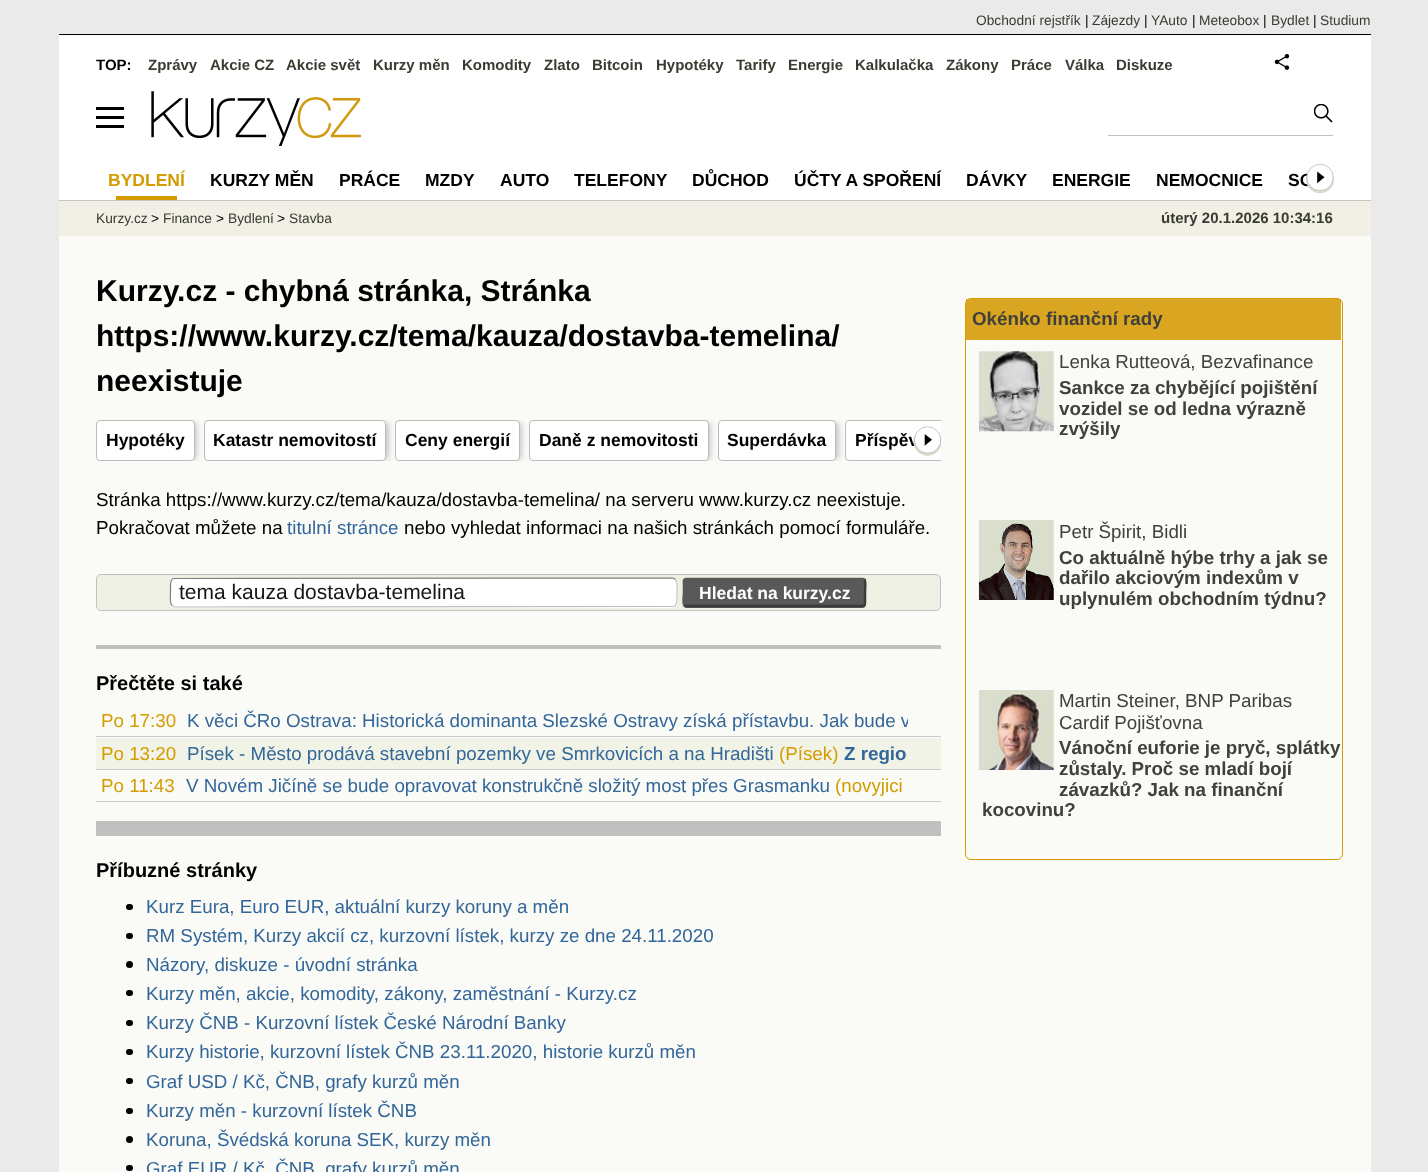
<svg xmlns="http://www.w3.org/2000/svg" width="1428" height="1172">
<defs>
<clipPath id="clip1"><rect x="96" y="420" width="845" height="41"/></clipPath>
<clipPath id="clip2"><rect x="96" y="420" width="845" height="41"/></clipPath>
<clipPath id="clip3"><rect x="183" y="708" width="725" height="26"/></clipPath>
</defs>
<rect width="100%" height="100%" fill="#eaeaea"/>
<rect x="59" y="236" width="1312" height="936" fill="#fafbf7"/>
<rect x="59" y="34" width="1312" height="1" fill="#000"/>
<text x="976" y="25" style="font-family:Liberation Sans;font-size:13.75px;fill:#393c31">Obchodní rejstřík</text>
<text x="1085" y="25" style="font-family:Liberation Sans;font-size:13.75px;fill:#000">|</text>
<text x="1092" y="25" style="font-family:Liberation Sans;font-size:13.75px;fill:#393c31">Zájezdy</text>
<text x="1144" y="25" style="font-family:Liberation Sans;font-size:13.75px;fill:#000">|</text>
<text x="1151" y="25" style="font-family:Liberation Sans;font-size:13.75px;fill:#393c31">YAuto</text>
<text x="1192" y="25" style="font-family:Liberation Sans;font-size:13.75px;fill:#000">|</text>
<text x="1199" y="25" style="font-family:Liberation Sans;font-size:13.75px;fill:#393c31">Meteobox</text>
<text x="1263" y="25" style="font-family:Liberation Sans;font-size:13.75px;fill:#000">|</text>
<text x="1271" y="25" style="font-family:Liberation Sans;font-size:13.75px;fill:#393c31">Bydlet</text>
<text x="1313" y="25" style="font-family:Liberation Sans;font-size:13.75px;fill:#000">|</text>
<text x="1320" y="25" style="font-family:Liberation Sans;font-size:13.75px;fill:#393c31">Studium</text>
<rect x="59" y="35" width="1312" height="165" fill="#fff"/>
<rect x="96" y="107" width="28" height="3" fill="#000"/>
<image x="151" y="91" width="210" height="55" href="media/1.png"/>
<rect x="1108" y="135" width="225" height="1" fill="#c0c0c0"/>
<image x="1314" y="104" width="19" height="19" href="media/2.png"/>
<rect x="96" y="116" width="28" height="3" fill="#000"/>
<rect x="96" y="125" width="28" height="3" fill="#000"/>
<text x="96" y="70" style="font-family:Liberation Sans;font-size:15px;font-weight:bold;fill:#000">TOP:</text>
<text x="148" y="70" style="font-family:Liberation Sans;font-size:15px;font-weight:bold;fill:#393c31">Zprávy</text>
<text x="210" y="70" style="font-family:Liberation Sans;font-size:15px;font-weight:bold;fill:#393c31">Akcie CZ</text>
<text x="286" y="70" style="font-family:Liberation Sans;font-size:15px;font-weight:bold;fill:#393c31">Akcie svět</text>
<text x="373" y="70" style="font-family:Liberation Sans;font-size:15px;font-weight:bold;fill:#393c31">Kurzy měn</text>
<text x="462" y="70" style="font-family:Liberation Sans;font-size:15px;font-weight:bold;fill:#393c31">Komodity</text>
<text x="544" y="70" style="font-family:Liberation Sans;font-size:15px;font-weight:bold;fill:#393c31">Zlato</text>
<text x="592" y="70" style="font-family:Liberation Sans;font-size:15px;font-weight:bold;fill:#393c31">Bitcoin</text>
<text x="656" y="70" style="font-family:Liberation Sans;font-size:15px;font-weight:bold;fill:#393c31">Hypotéky</text>
<text x="736" y="70" style="font-family:Liberation Sans;font-size:15px;font-weight:bold;fill:#393c31">Tarify</text>
<text x="788" y="70" style="font-family:Liberation Sans;font-size:15px;font-weight:bold;fill:#393c31">Energie</text>
<text x="855" y="70" style="font-family:Liberation Sans;font-size:15px;font-weight:bold;fill:#393c31">Kalkulačka</text>
<text x="946" y="70" style="font-family:Liberation Sans;font-size:15px;font-weight:bold;fill:#393c31">Zákony</text>
<text x="1011" y="70" style="font-family:Liberation Sans;font-size:15px;font-weight:bold;fill:#393c31">Práce</text>
<text x="1065" y="70" style="font-family:Liberation Sans;font-size:15px;font-weight:bold;fill:#393c31">Válka</text>
<text x="1116" y="70" style="font-family:Liberation Sans;font-size:15px;font-weight:bold;fill:#393c31">Diskuze</text>
<image x="1274" y="54" width="16" height="16" href="media/3.png"/>
<rect x="59" y="201" width="1312" height="35" fill="#f2efe6"/>
<text x="96" y="223" style="font-family:Liberation Sans;font-size:13.75px;fill:#393c31">Kurzy.cz</text>
<text x="151" y="223" style="font-family:Liberation Sans;font-size:13.75px;fill:#000">&gt;</text>
<text x="163" y="223" style="font-family:Liberation Sans;font-size:13.75px;fill:#393c31">Finance</text>
<text x="216" y="223" style="font-family:Liberation Sans;font-size:13.75px;fill:#000">&gt;</text>
<text x="228" y="223" style="font-family:Liberation Sans;font-size:13.75px;fill:#393c31">Bydlení</text>
<text x="277" y="223" style="font-family:Liberation Sans;font-size:13.75px;fill:#000">&gt;</text>
<text x="289" y="223" style="font-family:Liberation Sans;font-size:13.75px;fill:#393c31">Stavba</text>
<text x="1161" y="223" style="font-family:Liberation Sans;font-size:15px;font-weight:bold;fill:#393c31">úterý 20.1.2026 10:34:16</text>
<text x="96" y="301" style="font-family:Liberation Sans;font-size:30px;font-weight:bold;fill:#000">Kurzy.cz - chybná stránka, Stránka</text>
<text x="96" y="346" style="font-family:Liberation Sans;font-size:30px;font-weight:bold;fill:#000">https://www.kurzy.cz/tema/kauza/dostavba-temelina/</text>
<text x="96" y="391" style="font-family:Liberation Sans;font-size:30px;font-weight:bold;fill:#000">neexistuje</text>
<g clip-path="url(#clip1)">
<rect x="103" y="423" width="93" height="36" rx="1" fill="#bbb" filter="blur(3px)"/>
</g>
<rect x="96.5" y="420.5" width="98" height="40" rx="3.5" fill="#fff" stroke="#bbb"/>
<text x="106" y="446" style="font-family:Liberation Sans;font-size:17.5px;font-weight:bold;fill:#000">Hypotéky</text>
<g clip-path="url(#clip1)">
<rect x="210" y="423" width="178" height="36" rx="1" fill="#bbb" filter="blur(3px)"/>
</g>
<rect x="204.5" y="420.5" width="181" height="40" rx="3.5" fill="#fff" stroke="#bbb"/>
<text x="213" y="446" style="font-family:Liberation Sans;font-size:17.5px;font-weight:bold;fill:#000">Katastr nemovitostí</text>
<g clip-path="url(#clip1)">
<rect x="401" y="423" width="120" height="36" rx="1" fill="#bbb" filter="blur(3px)"/>
</g>
<rect x="395.5" y="420.5" width="124" height="40" rx="3.5" fill="#fff" stroke="#bbb"/>
<text x="405" y="446" style="font-family:Liberation Sans;font-size:17.5px;font-weight:bold;fill:#000">Ceny energií</text>
<g clip-path="url(#clip1)">
<rect x="535" y="423" width="175" height="36" rx="1" fill="#bbb" filter="blur(3px)"/>
</g>
<rect x="529.5" y="420.5" width="179" height="40" rx="3.5" fill="#fff" stroke="#bbb"/>
<text x="539" y="446" style="font-family:Liberation Sans;font-size:17.5px;font-weight:bold;fill:#000">Daně z nemovitosti</text>
<g clip-path="url(#clip1)">
<rect x="724" y="423" width="114" height="36" rx="1" fill="#bbb" filter="blur(3px)"/>
</g>
<rect x="718.5" y="420.5" width="117" height="40" rx="3.5" fill="#fff" stroke="#bbb"/>
<text x="727" y="446" style="font-family:Liberation Sans;font-size:17.5px;font-weight:bold;fill:#000">Superdávka</text>
<path d="M849 420h92v41h-92c-2 0-4-2-4-4v-33c0-2 2-4 4-4z" fill="#fff"/>
<rect x="965.5" y="298.5" width="377" height="561" rx="5.5" fill="none" stroke="#d49c01"/>
<g clip-path="url(#clip2)">
<rect x="845.5" y="420.5" width="194" height="40" rx="3.5" fill="none" stroke="#bbb"/>
</g>
<text x="855" y="446" style="font-family:Liberation Sans;font-size:17.5px;font-weight:bold;fill:#000">Příspěv</text>
<image x="913" y="426" width="29" height="30" href="media/4.png"/>
<text x="96" y="506" style="font-family:Liberation Sans;font-size:18.75px;fill:#000">Stránka https://www.kurzy.cz/tema/kauza/dostavba-temelina/ na serveru www.kurzy.cz neexistuje.</text>
<text x="96" y="534" style="font-family:Liberation Sans;font-size:18.75px;fill:#000">Pokračovat můžete na</text>
<text x="287" y="534" style="font-family:Liberation Sans;font-size:18.75px;fill:#369">titulní stránce</text>
<text x="404" y="534" style="font-family:Liberation Sans;font-size:18.75px;fill:#000">nebo vyhledat informaci na našich stránkách pomocí formuláře.</text>
<rect x="96.5" y="574.5" width="844" height="36" rx="4.5" fill="#eef0e3" stroke="#c0c0c0"/>
<rect x="170" y="578" width="508" height="30" rx="5" fill="#fff"/>
<path d="M675.5 579.5c2.5 2.5 1.5 10 1.5 13v6.5c0 3 0 6.5-3 7.5l-499.5 .5l-2.5-1.5" fill="none" stroke="#c0c0c0" stroke-width="1.2"/>
<path d="M172 605.5c-2.5-2.5-1.5-10-1.5-13v-6.5c0-3 0-6.5 3-7.5l499.5-.5l2.5 1.5" fill="none" stroke="#808080" stroke-width="1.2"/>
<text x="179" y="599" style="font-family:Liberation Sans;font-size:21px;fill:#161614">tema kauza dostavba-temelina</text>
<rect x="683" y="578" width="183" height="30" rx="4" fill="#595959"/>
<path d="M864.5 579.5c1.5 1.5 .5 10.5 .5 13v7.5c0 2 .5 6-2.5 6h-176.5l-1.5-.5" fill="none" stroke="#3b3b3b" stroke-width="2.5"/>
<path d="M684.5 605.5c-2-1.5-.5-10.5-.5-13v-7.5c0-2-1-6 2-6h176.5l2 .5" fill="none" stroke="#595959" stroke-width="2.5"/>
<text x="699" y="599" style="font-family:Liberation Sans;font-size:17.5px;font-weight:bold;fill:#fff">Hledat na kurzy.cz</text>
<rect x="96" y="645" width="845" height="4" fill="#c0c0c0"/>
<text x="96" y="690" style="font-family:Liberation Sans;font-size:20px;font-weight:bold;fill:#000">Přečtěte si také</text>
<rect x="96" y="736" width="845" height="1" fill="#ccc"/>
<text x="101" y="727" style="font-family:Liberation Sans;font-size:18.75px;fill:#d49c01">Po 17:30</text>
<g clip-path="url(#clip3)">
<text x="187" y="727" style="font-family:Liberation Sans;font-size:18.75px;fill:#369">K věci ČRo Ostrava: Historická dominanta Slezské Ostravy získá přístavbu. Jak bude v</text>
</g>
<rect x="96" y="738" width="845" height="31" fill="#f1f3e6"/>
<rect x="96" y="769" width="845" height="1" fill="#ccc"/>
<text x="101" y="760" style="font-family:Liberation Sans;font-size:18.75px;fill:#d49c01">Po 13:20</text>
<text x="187" y="760" style="font-family:Liberation Sans;font-size:18.75px;fill:#369">Písek - Město prodává stavební pozemky ve Smrkovicích a na Hradišti</text>
<text x="779" y="760" style="font-family:Liberation Sans;font-size:18.75px;fill:#d49c01">(Písek)</text>
<text x="844" y="760" style="font-family:Liberation Sans;font-size:18.75px;font-weight:bold;fill:#369">Z regio</text>
<rect x="96" y="801" width="845" height="1" fill="#ccc"/>
<text x="101" y="792" style="font-family:Liberation Sans;font-size:18.75px;fill:#d49c01">Po 11:43</text>
<text x="186" y="792" style="font-family:Liberation Sans;font-size:18.75px;fill:#369">V Novém Jičíně se bude opravovat konstrukčně složitý most přes Grasmanku</text>
<text x="835" y="792" style="font-family:Liberation Sans;font-size:18.75px;fill:#d49c01">(novyjici</text>
<rect x="96" y="821" width="845" height="15" fill="#c0c0c0"/>
<text x="96" y="877" style="font-family:Liberation Sans;font-size:20px;font-weight:bold;fill:#000">Příbuzné stránky</text>
<rect x="126" y="904" width="7" height="6" rx="3" fill="#000"/>
<text x="146" y="913" style="font-family:Liberation Sans;font-size:18.75px;fill:#369">Kurz Eura, Euro EUR, aktuální kurzy koruny a měn</text>
<rect x="126" y="933" width="7" height="6" rx="3" fill="#000"/>
<text x="146" y="942" style="font-family:Liberation Sans;font-size:18.75px;fill:#369">RM Systém, Kurzy akcií cz, kurzovní lístek, kurzy ze dne 24.11.2020</text>
<circle cx="129.5" cy="964.5" r="3.5" fill="#000"/>
<text x="146" y="971" style="font-family:Liberation Sans;font-size:18.75px;fill:#369">Názory, diskuze - úvodní stránka</text>
<rect x="126" y="990" width="7" height="6" rx="3" fill="#000"/>
<text x="146" y="1000" style="font-family:Liberation Sans;font-size:18.75px;fill:#369">Kurzy měn, akcie, komodity, zákony, zaměstnání - Kurzy.cz</text>
<rect x="126" y="1020" width="7" height="6" rx="3" fill="#000"/>
<text x="146" y="1029" style="font-family:Liberation Sans;font-size:18.75px;fill:#369">Kurzy ČNB - Kurzovní lístek České Národní Banky</text>
<rect x="126" y="1049" width="7" height="6" rx="3" fill="#000"/>
<text x="146" y="1058" style="font-family:Liberation Sans;font-size:18.75px;fill:#369">Kurzy historie, kurzovní lístek ČNB 23.11.2020, historie kurzů měn</text>
<rect x="126" y="1078" width="7" height="6" rx="3" fill="#000"/>
<text x="146" y="1088" style="font-family:Liberation Sans;font-size:18.75px;fill:#369">Graf USD / Kč, ČNB, grafy kurzů měn</text>
<rect x="126" y="1108" width="7" height="6" rx="3" fill="#000"/>
<text x="146" y="1117" style="font-family:Liberation Sans;font-size:18.75px;fill:#369">Kurzy měn - kurzovní lístek ČNB</text>
<circle cx="129.5" cy="1139.5" r="3.5" fill="#000"/>
<text x="146" y="1146" style="font-family:Liberation Sans;font-size:18.75px;fill:#369">Koruna, Švédská koruna SEK, kurzy měn</text>
<rect x="126" y="1165" width="7" height="6" rx="3" fill="#000"/>
<text x="146" y="1175" style="font-family:Liberation Sans;font-size:18.75px;fill:#369">Graf EUR / Kč, ČNB, grafy kurzů měn</text>
<rect x="966" y="299" width="375" height="41" fill="#daa520"/>
<text x="972" y="325" style="font-family:Liberation Sans;font-size:18.75px;font-weight:bold;fill:#40413b">Okénko finanční rady</text>
<image x="978" y="351" width="76" height="81" href="media/5.png"/>
<text x="1059" y="368" style="font-family:Liberation Sans;font-size:18.75px;fill:#40413b">Lenka Rutteová, Bezvafinance</text>
<text x="1059" y="394" style="font-family:Liberation Sans;font-size:18.75px;font-weight:bold;fill:#40413b">Sankce za chybějící pojištění</text>
<text x="1059" y="415" style="font-family:Liberation Sans;font-size:18.75px;font-weight:bold;fill:#40413b">vozidel se od ledna výrazně</text>
<text x="1059" y="435" style="font-family:Liberation Sans;font-size:18.75px;font-weight:bold;fill:#40413b">zvýšily</text>
<image x="978" y="520" width="76" height="80" href="media/6.png"/>
<text x="1059" y="538" style="font-family:Liberation Sans;font-size:18.75px;fill:#40413b">Petr Špirit, Bidli</text>
<text x="1059" y="564" style="font-family:Liberation Sans;font-size:18.75px;font-weight:bold;fill:#40413b">Co aktuálně hýbe trhy a jak se</text>
<text x="1059" y="584" style="font-family:Liberation Sans;font-size:18.75px;font-weight:bold;fill:#40413b">dařilo akciovým indexům v</text>
<text x="1059" y="605" style="font-family:Liberation Sans;font-size:18.75px;font-weight:bold;fill:#40413b">uplynulém obchodním týdnu?</text>
<image x="979" y="690" width="75" height="80" href="media/7.png"/>
<text x="1059" y="707" style="font-family:Liberation Sans;font-size:18.75px;fill:#40413b">Martin Steiner, BNP Paribas</text>
<text x="1059" y="729" style="font-family:Liberation Sans;font-size:18.75px;fill:#40413b">Cardif Pojišťovna</text>
<text x="1059" y="754" style="font-family:Liberation Sans;font-size:18.75px;font-weight:bold;fill:#40413b">Vánoční euforie je pryč, splátky</text>
<text x="1059" y="775" style="font-family:Liberation Sans;font-size:18.75px;font-weight:bold;fill:#40413b">zůstaly. Proč se mladí bojí</text>
<text x="1059" y="796" style="font-family:Liberation Sans;font-size:18.75px;font-weight:bold;fill:#40413b">závazků? Jak na finanční</text>
<text x="982" y="816" style="font-family:Liberation Sans;font-size:18.75px;font-weight:bold;fill:#40413b">kocovinu?</text>
<rect x="59" y="200" width="1312" height="1" fill="#c5c6bd"/>
<rect x="116" y="196" width="61" height="4" fill="#d49c01"/>
<text x="108" y="186" style="font-family:Liberation Sans;font-size:17.5px;font-weight:bold;fill:#d49c01">BYDLENÍ</text>
<text x="210" y="186" style="font-family:Liberation Sans;font-size:17.5px;font-weight:bold;fill:#000">KURZY MĚN</text>
<text x="339" y="186" style="font-family:Liberation Sans;font-size:17.5px;font-weight:bold;fill:#000">PRÁCE</text>
<text x="425" y="186" style="font-family:Liberation Sans;font-size:17.5px;font-weight:bold;fill:#000">MZDY</text>
<text x="500" y="186" style="font-family:Liberation Sans;font-size:17.5px;font-weight:bold;fill:#000">AUTO</text>
<text x="574" y="186" style="font-family:Liberation Sans;font-size:17.5px;font-weight:bold;fill:#000">TELEFONY</text>
<text x="692" y="186" style="font-family:Liberation Sans;font-size:17.5px;font-weight:bold;fill:#000">DŮCHOD</text>
<text x="794" y="186" style="font-family:Liberation Sans;font-size:17.5px;font-weight:bold;fill:#000">ÚČTY A SPOŘENÍ</text>
<text x="966" y="186" style="font-family:Liberation Sans;font-size:17.5px;font-weight:bold;fill:#000">DÁVKY</text>
<text x="1052" y="186" style="font-family:Liberation Sans;font-size:17.5px;font-weight:bold;fill:#000">ENERGIE</text>
<text x="1156" y="186" style="font-family:Liberation Sans;font-size:17.5px;font-weight:bold;fill:#000">NEMOCNICE</text>
<text x="1288" y="186" style="font-family:Liberation Sans;font-size:17.5px;font-weight:bold;fill:#000">SO</text>
<image x="1306" y="164" width="28" height="30" href="media/8.png"/>
</svg>
